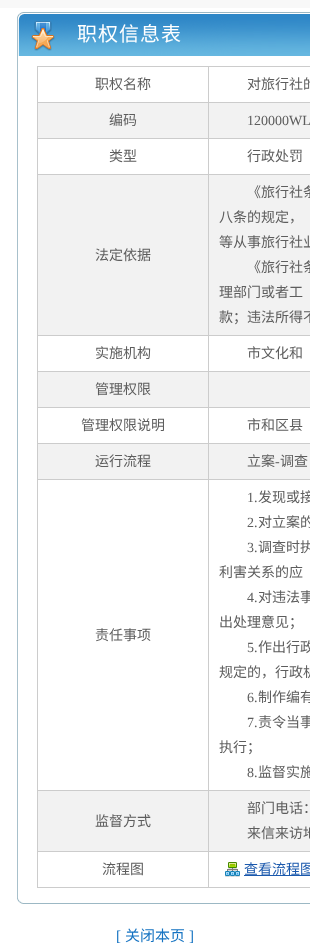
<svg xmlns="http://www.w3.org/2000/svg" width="310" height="949">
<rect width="100%" height="100%" fill="#fff"/>
<rect width="310" height="8" fill="#f8f8f8"/>
<image x="17" y="12" width="293" height="44" href="media/1.png"/>
<text x="77" y="41" style="font-family:Noto Sans CJK SC;font-size:20px;letter-spacing:1px;fill:#fff">职权信息表</text>
<rect x="17" y="56" width="1" height="842" fill="#a8c0cb"/>
<rect x="208" y="66" width="102" height="1" fill="#ccc"/>
<rect x="208" y="102" width="102" height="1" fill="#ccc"/>
<rect x="38" y="103" width="272" height="35" fill="#f2f2f2"/>
<rect x="208" y="138" width="102" height="1" fill="#ccc"/>
<rect x="208" y="174" width="102" height="1" fill="#ccc"/>
<rect x="38" y="175" width="272" height="160" fill="#f2f2f2"/>
<rect x="208" y="335" width="102" height="1" fill="#ccc"/>
<rect x="208" y="371" width="102" height="1" fill="#ccc"/>
<rect x="38" y="372" width="272" height="35" fill="#f2f2f2"/>
<rect x="208" y="407" width="102" height="1" fill="#ccc"/>
<rect x="208" y="443" width="102" height="1" fill="#ccc"/>
<rect x="38" y="444" width="272" height="35" fill="#f2f2f2"/>
<rect x="208" y="479" width="102" height="1" fill="#ccc"/>
<rect x="208" y="790" width="102" height="1" fill="#ccc"/>
<rect x="38" y="791" width="272" height="60" fill="#f2f2f2"/>
<rect x="208" y="851" width="102" height="1" fill="#ccc"/>
<rect x="208" y="887" width="102" height="1" fill="#ccc"/>
<rect x="208" y="851" width="1" height="37" fill="#ccc"/>
<rect x="37" y="851" width="172" height="1" fill="#ccc"/>
<rect x="208" y="790" width="1" height="62" fill="#ccc"/>
<rect x="37" y="790" width="172" height="1" fill="#ccc"/>
<rect x="208" y="479" width="1" height="312" fill="#ccc"/>
<rect x="37" y="479" width="172" height="1" fill="#ccc"/>
<rect x="208" y="443" width="1" height="37" fill="#ccc"/>
<rect x="37" y="443" width="172" height="1" fill="#ccc"/>
<rect x="208" y="407" width="1" height="37" fill="#ccc"/>
<rect x="37" y="407" width="172" height="1" fill="#ccc"/>
<rect x="208" y="371" width="1" height="37" fill="#ccc"/>
<rect x="37" y="371" width="172" height="1" fill="#ccc"/>
<rect x="208" y="335" width="1" height="37" fill="#ccc"/>
<rect x="37" y="335" width="172" height="1" fill="#ccc"/>
<rect x="208" y="174" width="1" height="162" fill="#ccc"/>
<rect x="37" y="174" width="172" height="1" fill="#ccc"/>
<rect x="208" y="138" width="1" height="37" fill="#ccc"/>
<rect x="37" y="138" width="172" height="1" fill="#ccc"/>
<rect x="208" y="102" width="1" height="37" fill="#ccc"/>
<rect x="37" y="102" width="172" height="1" fill="#ccc"/>
<rect x="208" y="66" width="1" height="37" fill="#ccc"/>
<rect x="37" y="66" width="172" height="1" fill="#ccc"/>
<rect x="37" y="887" width="172" height="1" fill="#ccc"/>
<rect x="37" y="851" width="1" height="37" fill="#ccc"/>
<rect x="37" y="790" width="1" height="62" fill="#ccc"/>
<rect x="37" y="479" width="1" height="312" fill="#ccc"/>
<rect x="37" y="443" width="1" height="37" fill="#ccc"/>
<rect x="37" y="407" width="1" height="37" fill="#ccc"/>
<rect x="37" y="371" width="1" height="37" fill="#ccc"/>
<rect x="37" y="335" width="1" height="37" fill="#ccc"/>
<rect x="37" y="174" width="1" height="162" fill="#ccc"/>
<rect x="37" y="138" width="1" height="37" fill="#ccc"/>
<rect x="37" y="102" width="1" height="37" fill="#ccc"/>
<rect x="37" y="66" width="1" height="37" fill="#ccc"/>
<text x="95" y="89" style="font-family:Noto Sans CJK SC;font-size:14px;fill:#5d5d5d">职权名称</text>
<text x="247" y="89" style="font-family:Noto Sans CJK SC;font-size:14px;fill:#5d5d5d">对旅行社的</text>
<text x="109" y="125" style="font-family:Noto Sans CJK SC;font-size:14px;fill:#5d5d5d">编码</text>
<text x="247" y="125" style="font-family:Liberation Serif;font-size:14px;fill:#5d5d5d">120000WL</text>
<text x="109" y="161" style="font-family:Noto Sans CJK SC;font-size:14px;fill:#5d5d5d">类型</text>
<text x="247" y="161" style="font-family:Noto Sans CJK SC;font-size:14px;fill:#5d5d5d">行政处罚</text>
<text x="95" y="260" style="font-family:Noto Sans CJK SC;font-size:14px;fill:#5d5d5d">法定依据</text>
<text x="247" y="197" style="font-family:Noto Sans CJK SC;font-size:14px;fill:#5d5d5d">《旅行社条</text>
<text x="219" y="222" style="font-family:Noto Sans CJK SC;font-size:14px;fill:#5d5d5d">八条的规定，</text>
<text x="219" y="247" style="font-family:Noto Sans CJK SC;font-size:14px;fill:#5d5d5d">等从事旅行社业</text>
<text x="247" y="272" style="font-family:Noto Sans CJK SC;font-size:14px;fill:#5d5d5d">《旅行社条</text>
<text x="219" y="297" style="font-family:Noto Sans CJK SC;font-size:14px;fill:#5d5d5d">理部门或者工</text>
<text x="219" y="322" style="font-family:Noto Sans CJK SC;font-size:14px;fill:#5d5d5d">款；违法所得不</text>
<text x="95" y="358" style="font-family:Noto Sans CJK SC;font-size:14px;fill:#5d5d5d">实施机构</text>
<text x="247" y="358" style="font-family:Noto Sans CJK SC;font-size:14px;fill:#5d5d5d">市文化和</text>
<text x="95" y="394" style="font-family:Noto Sans CJK SC;font-size:14px;fill:#5d5d5d">管理权限</text>
<text x="81" y="430" style="font-family:Noto Sans CJK SC;font-size:14px;fill:#5d5d5d">管理权限说明</text>
<text x="247" y="430" style="font-family:Noto Sans CJK SC;font-size:14px;fill:#5d5d5d">市和区县</text>
<text x="95" y="466" style="font-family:Noto Sans CJK SC;font-size:14px;fill:#5d5d5d">运行流程</text>
<text x="247" y="466" style="font-family:Noto Sans CJK SC;font-size:14px;fill:#5d5d5d">立案</text>
<text x="275" y="466" style="font-family:Liberation Serif;font-size:14px;fill:#5d5d5d">-</text>
<text x="280" y="466" style="font-family:Noto Sans CJK SC;font-size:14px;fill:#5d5d5d">调查</text>
<text x="95" y="640" style="font-family:Noto Sans CJK SC;font-size:14px;fill:#5d5d5d">责任事项</text>
<text x="247" y="502" style="font-family:Liberation Serif;font-size:14px;fill:#5d5d5d">1.</text>
<text x="258" y="502" style="font-family:Noto Sans CJK SC;font-size:14px;fill:#5d5d5d">发现或接</text>
<text x="247" y="527" style="font-family:Liberation Serif;font-size:14px;fill:#5d5d5d">2.</text>
<text x="258" y="527" style="font-family:Noto Sans CJK SC;font-size:14px;fill:#5d5d5d">对立案的</text>
<text x="247" y="552" style="font-family:Liberation Serif;font-size:14px;fill:#5d5d5d">3.</text>
<text x="258" y="552" style="font-family:Noto Sans CJK SC;font-size:14px;fill:#5d5d5d">调查时执</text>
<text x="219" y="577" style="font-family:Noto Sans CJK SC;font-size:14px;fill:#5d5d5d">利害关系的应</text>
<text x="247" y="602" style="font-family:Liberation Serif;font-size:14px;fill:#5d5d5d">4.</text>
<text x="258" y="602" style="font-family:Noto Sans CJK SC;font-size:14px;fill:#5d5d5d">对违法事</text>
<text x="219" y="627" style="font-family:Noto Sans CJK SC;font-size:14px;fill:#5d5d5d">出处理意见；</text>
<text x="247" y="652" style="font-family:Liberation Serif;font-size:14px;fill:#5d5d5d">5.</text>
<text x="258" y="652" style="font-family:Noto Sans CJK SC;font-size:14px;fill:#5d5d5d">作出行政</text>
<text x="219" y="677" style="font-family:Noto Sans CJK SC;font-size:14px;fill:#5d5d5d">规定的，行政机</text>
<text x="247" y="702" style="font-family:Liberation Serif;font-size:14px;fill:#5d5d5d">6.</text>
<text x="258" y="702" style="font-family:Noto Sans CJK SC;font-size:14px;fill:#5d5d5d">制作编有</text>
<text x="247" y="727" style="font-family:Liberation Serif;font-size:14px;fill:#5d5d5d">7.</text>
<text x="258" y="727" style="font-family:Noto Sans CJK SC;font-size:14px;fill:#5d5d5d">责令当事</text>
<text x="219" y="752" style="font-family:Noto Sans CJK SC;font-size:14px;fill:#5d5d5d">执行；</text>
<text x="247" y="777" style="font-family:Liberation Serif;font-size:14px;fill:#5d5d5d">8.</text>
<text x="258" y="777" style="font-family:Noto Sans CJK SC;font-size:14px;fill:#5d5d5d">监督实施</text>
<text x="95" y="826" style="font-family:Noto Sans CJK SC;font-size:14px;fill:#5d5d5d">监督方式</text>
<text x="247" y="813" style="font-family:Noto Sans CJK SC;font-size:14px;fill:#5d5d5d">部门电话：</text>
<text x="247" y="838" style="font-family:Noto Sans CJK SC;font-size:14px;fill:#5d5d5d">来信来访地</text>
<text x="102" y="874" style="font-family:Noto Sans CJK SC;font-size:14px;fill:#5d5d5d">流程图</text>
<image x="225" y="862" width="15" height="15" href="media/2.png"/>
<rect x="244" y="875" width="66" height="1" fill="#1b59ad"/>
<text x="244" y="874" style="font-family:Noto Sans CJK SC;font-size:14px;fill:#1b59ad">查看流程图</text>
<image x="17" y="898" width="293" height="6" href="media/3.png"/>
<text x="116" y="941" style="font-family:Liberation Serif;font-size:15px;fill:#1573c2">[</text>
<text x="125" y="941" style="font-family:Noto Sans CJK SC;font-size:15px;fill:#1573c2">关闭本页</text>
<text x="189" y="941" style="font-family:Liberation Serif;font-size:15px;fill:#1573c2">]</text>
</svg>
